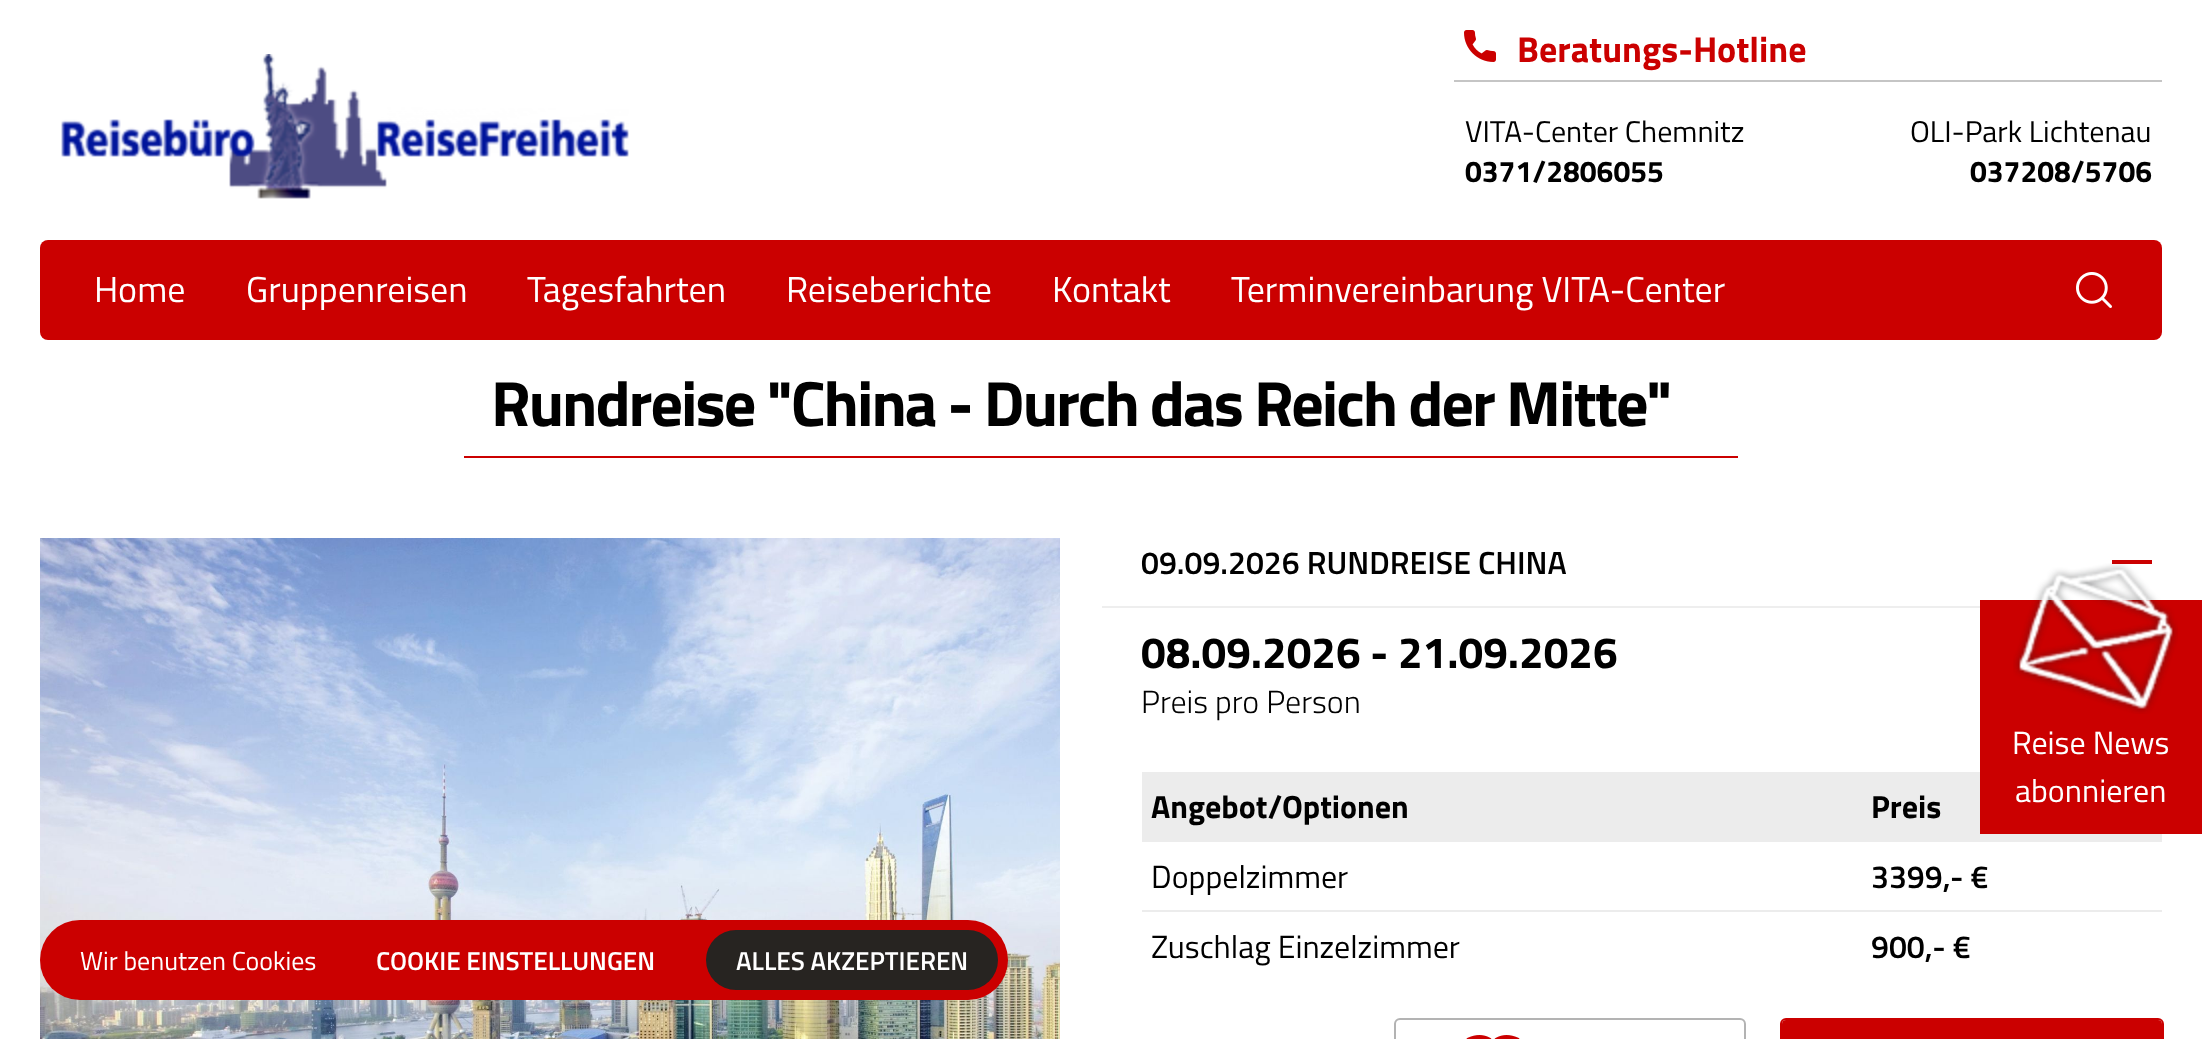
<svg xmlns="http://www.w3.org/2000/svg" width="2202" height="1039">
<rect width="100%" height="100%" fill="#fff"/>
<image x="61" y="54" width="568" height="145" href="media/1.png"/>
<rect x="1454" y="80" width="708" height="2" fill="#c5c5c5"/>
<image x="1464" y="30" width="32" height="32" href="media/2.png"/>
<text x="1517" y="62" style="font-family:Titillium Web;font-size:36px;font-weight:bold;fill:#cb0000">Beratungs-Hotline</text>
<text x="1465" y="142" style="font-family:Titillium Web;font-size:30px;fill:#000">VITA-Center Chemnitz</text>
<text x="1465" y="182" style="font-family:Titillium Web;font-size:30px;font-weight:bold;fill:#000">0371/2806055</text>
<text x="1910" y="142" style="font-family:Titillium Web;font-size:30px;fill:#000">OLI-Park Lichtenau</text>
<text x="1970" y="182" style="font-family:Titillium Web;font-size:30px;font-weight:bold;fill:#000">037208/5706</text>
<rect x="40" y="240" width="2122" height="100" rx="8" fill="#cb0000"/>
<text x="94" y="302" style="font-family:Titillium Web;font-size:36px;fill:#fff">Home</text>
<text x="246" y="302" style="font-family:Titillium Web;font-size:36px;fill:#fff">Gruppenreisen</text>
<text x="527" y="302" style="font-family:Titillium Web;font-size:36px;fill:#fff">Tagesfahrten</text>
<text x="786" y="302" style="font-family:Titillium Web;font-size:36px;fill:#fff">Reiseberichte</text>
<text x="1052" y="302" style="font-family:Titillium Web;font-size:36px;fill:#fff">Kontakt</text>
<text x="1231" y="302" style="font-family:Titillium Web;font-size:36px;fill:#fff">Terminvereinbarung VITA-Center</text>
<image x="2076" y="272" width="36" height="36" href="media/3.png"/>
<text x="491" y="426" style="font-family:Titillium Web;font-size:64px;font-weight:bold;letter-spacing:-2px;fill:#000">Rundreise "China - Durch das Reich der Mitte"</text>
<rect x="464" y="456" width="1274" height="2" fill="#cb0000"/>
<image x="40" y="538" width="1020" height="501" href="media/4.png"/>
<rect x="1102" y="606" width="878" height="2" fill="#eee"/>
<text x="1141" y="574" style="font-family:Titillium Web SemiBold;font-size:32px;font-weight:600;fill:#000">09.09.2026 RUNDREISE CHINA</text>
<rect x="2112" y="560" width="40" height="4" fill="#cb0000"/>
<text x="1141" y="668" style="font-family:Titillium Web;font-size:44px;font-weight:bold;fill:#000">08.09.2026 - 21.09.2026</text>
<text x="1141" y="713" style="font-family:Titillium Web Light;font-size:32px;font-weight:300;fill:#000">Preis pro Person</text>
<rect x="1142" y="772" width="1020" height="68" fill="#ececec"/>
<text x="1151" y="818" style="font-family:Titillium Web;font-size:32px;font-weight:bold;fill:#000">Angebot/Optionen</text>
<text x="1871" y="818" style="font-family:Titillium Web;font-size:32px;font-weight:bold;fill:#000">Preis</text>
<rect x="1142" y="840" width="1020" height="2" fill="#ececec"/>
<text x="1151" y="888" style="font-family:Titillium Web;font-size:32px;fill:#000">Doppelzimmer</text>
<text x="1871" y="888" style="font-family:Titillium Web SemiBold;font-size:32px;font-weight:600;fill:#000">3399,- €</text>
<rect x="1142" y="910" width="1020" height="2" fill="#ececec"/>
<text x="1151" y="958" style="font-family:Titillium Web;font-size:32px;fill:#000">Zuschlag Einzelzimmer</text>
<text x="1871" y="958" style="font-family:Titillium Web SemiBold;font-size:32px;font-weight:600;fill:#000">900,- €</text>
<rect x="1395" y="1019" width="350" height="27" rx="5" fill="none" stroke="#b3b3b3" stroke-width="2"/>
<image x="1466" y="1035" width="54" height="4" href="media/5.png"/>
<rect x="1781" y="1019" width="382" height="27" rx="5" fill="none" stroke="#cb0000" stroke-width="2"/>
<rect x="1782" y="1020" width="380" height="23" rx="4" fill="#cb0000"/>
<rect x="1980" y="600" width="222" height="234" fill="#cb0000"/>
<image x="2013" y="563" width="165" height="151" href="media/6.png"/>
<text x="2012" y="754" style="font-family:Titillium Web;font-size:32px;fill:#fff">Reise News</text>
<text x="2015" y="802" style="font-family:Titillium Web;font-size:32px;fill:#fff">abonnieren</text>
<rect x="40" y="920" width="968" height="80" rx="40" fill="#cb0000"/>
<text x="80" y="970" style="font-family:Titillium Web;font-size:26px;fill:#fff">Wir benutzen Cookies</text>
<text x="376" y="970" style="font-family:Titillium Web SemiBold;font-size:26px;font-weight:600;fill:#fff">COOKIE EINSTELLUNGEN</text>
<rect x="706" y="930" width="292" height="60" rx="30" fill="#272421"/>
<text x="736" y="970" style="font-family:Titillium Web SemiBold;font-size:26px;font-weight:600;fill:#fff">ALLES AKZEPTIEREN</text>
</svg>
